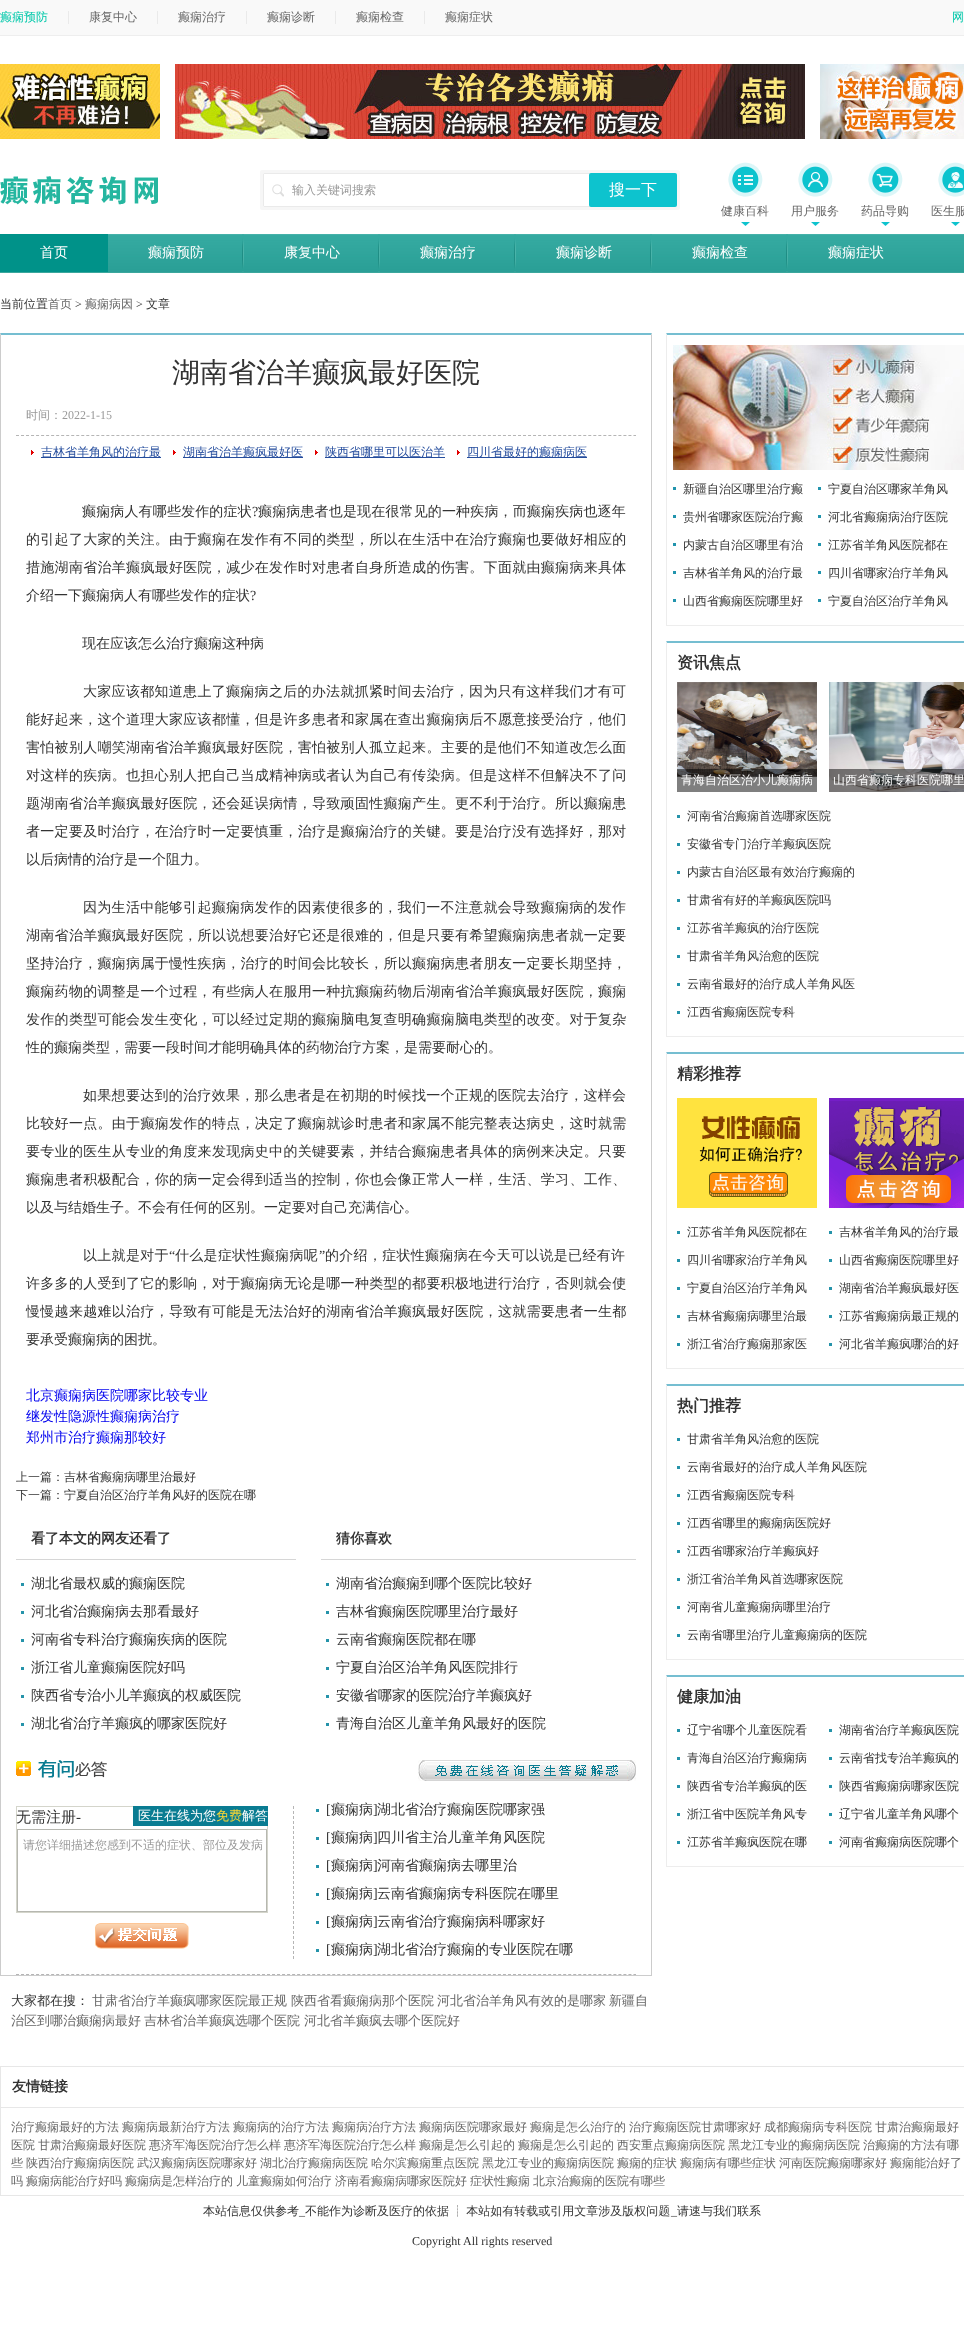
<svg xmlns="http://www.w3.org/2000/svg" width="964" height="2347">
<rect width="100%" height="100%" fill="#fff"/>
<rect width="964" height="35" fill="#f9f9f9"/>
<rect y="35" width="964" height="1" fill="#eee"/>
<text x="0" y="21" style="font-family:WenQuanYi Zen Hei;font-size:12px;font-weight:500;fill:#00c8aa">癫痫预防</text>
<rect x="68" y="11" width="1" height="13" fill="#eaeaea"/>
<text x="89" y="21" style="font-family:WenQuanYi Zen Hei;font-size:12px;font-weight:500;fill:#666">康复中心</text>
<rect x="157" y="11" width="1" height="13" fill="#eaeaea"/>
<text x="178" y="21" style="font-family:WenQuanYi Zen Hei;font-size:12px;font-weight:500;fill:#666">癫痫治疗</text>
<rect x="246" y="11" width="1" height="13" fill="#eaeaea"/>
<text x="267" y="21" style="font-family:WenQuanYi Zen Hei;font-size:12px;font-weight:500;fill:#666">癫痫诊断</text>
<rect x="335" y="11" width="1" height="13" fill="#eaeaea"/>
<text x="356" y="21" style="font-family:WenQuanYi Zen Hei;font-size:12px;font-weight:500;fill:#666">癫痫检查</text>
<rect x="424" y="11" width="1" height="13" fill="#eaeaea"/>
<text x="445" y="21" style="font-family:WenQuanYi Zen Hei;font-size:12px;font-weight:500;fill:#666">癫痫症状</text>
<text x="952" y="21" style="font-family:WenQuanYi Zen Hei;font-size:12px;font-weight:500;fill:#00c8aa">网</text>
<image x="0" y="64" width="160" height="75" href="media/1.png"/>
<image x="175" y="64" width="630" height="75" href="media/2.png"/>
<image x="820" y="64" width="144" height="75" href="media/3.png"/>
<image x="0" y="176" width="158" height="29" href="media/4.png"/>
<rect x="260" y="170" width="420" height="40" rx="2" fill="#f6f6f6"/>
<rect x="263.5" y="173.5" width="413" height="33" rx="1.5" fill="none" stroke="#eaeaea"/>
<rect x="264" y="174" width="326" height="32" fill="#fff"/>
<image x="272" y="184" width="12" height="13" href="media/5.png"/>
<text x="292" y="194" style="font-family:WenQuanYi Zen Hei;font-size:12px;font-weight:500;fill:#9a9a9a">输入关键词搜索</text>
<rect x="589" y="173" width="88" height="34" rx="2" fill="#0dc3ce"/>
<text x="609" y="195" style="font-family:WenQuanYi Zen Hei;font-size:16px;font-weight:500;fill:#fff">搜一下</text>
<image x="728" y="162" width="35" height="35" href="media/6.png"/>
<text x="721" y="215" style="font-family:WenQuanYi Zen Hei;font-size:12px;font-weight:500;fill:#666">健康百科</text>
<image x="741" y="222" width="9" height="4" href="media/7.png"/>
<image x="798" y="162" width="35" height="35" href="media/8.png"/>
<text x="791" y="215" style="font-family:WenQuanYi Zen Hei;font-size:12px;font-weight:500;fill:#666">用户服务</text>
<image x="811" y="222" width="9" height="4" href="media/7.png"/>
<image x="868" y="162" width="35" height="35" href="media/9.png"/>
<text x="861" y="215" style="font-family:WenQuanYi Zen Hei;font-size:12px;font-weight:500;fill:#666">药品导购</text>
<image x="881" y="222" width="9" height="4" href="media/7.png"/>
<image x="938" y="162" width="26" height="35" href="media/10.png"/>
<text x="931" y="215" style="font-family:WenQuanYi Zen Hei;font-size:12px;font-weight:500;fill:#666">医生服</text>
<image x="951" y="222" width="9" height="4" href="media/7.png"/>
<image x="0" y="234" width="964" height="39" href="media/11.png"/>
<rect y="234" width="108" height="38" fill="#009289"/>
<text x="40" y="257" style="font-family:WenQuanYi Zen Hei;font-size:14px;font-weight:500;fill:#fff">首页</text>
<image x="242" y="234" width="2" height="38" href="media/12.png"/>
<text x="148" y="257" style="font-family:WenQuanYi Zen Hei;font-size:14px;font-weight:500;fill:#fff">癫痫预防</text>
<image x="378" y="234" width="2" height="38" href="media/12.png"/>
<text x="284" y="257" style="font-family:WenQuanYi Zen Hei;font-size:14px;font-weight:500;fill:#fff">康复中心</text>
<image x="514" y="234" width="2" height="38" href="media/12.png"/>
<text x="420" y="257" style="font-family:WenQuanYi Zen Hei;font-size:14px;font-weight:500;fill:#fff">癫痫治疗</text>
<image x="650" y="234" width="2" height="38" href="media/12.png"/>
<text x="556" y="257" style="font-family:WenQuanYi Zen Hei;font-size:14px;font-weight:500;fill:#fff">癫痫诊断</text>
<image x="786" y="234" width="2" height="38" href="media/12.png"/>
<text x="692" y="257" style="font-family:WenQuanYi Zen Hei;font-size:14px;font-weight:500;fill:#fff">癫痫检查</text>
<text x="828" y="257" style="font-family:WenQuanYi Zen Hei;font-size:14px;font-weight:500;fill:#fff">癫痫症状</text>
<text x="0" y="308" style="font-family:WenQuanYi Zen Hei;font-size:12px;font-weight:500;fill:#333">当前位置</text>
<text x="48" y="308" style="font-family:WenQuanYi Zen Hei;font-size:12px;font-weight:500;fill:#666">首页</text>
<text x="75" y="308" style="font-family:Liberation Serif;font-size:12px;fill:#333">&gt;</text>
<text x="85" y="308" style="font-family:WenQuanYi Zen Hei;font-size:12px;font-weight:500;fill:#666">癫痫病因</text>
<text x="136" y="308" style="font-family:Liberation Serif;font-size:12px;fill:#333">&gt;</text>
<text x="146" y="308" style="font-family:WenQuanYi Zen Hei;font-size:12px;font-weight:500;fill:#333">文章</text>
<path d="M0 333h652l-1 2h-650z" fill="#75bed1"/>
<path d="M652 333v1643l-1-1v-1640z" fill="#ccc"/>
<rect y="1975" width="652" height="1" fill="#ccc"/>
<path d="M0 1976v-1643l1 2v1640z" fill="#ccc"/>
<path d="M16 435.5h620" fill="none" stroke="#b5b5b5" stroke-dasharray="3 2.02"/>
<text x="172" y="382" style="font-family:WenQuanYi Zen Hei;font-size:28px;font-weight:500;fill:#333">湖南省治羊癫疯最好医院</text>
<text x="26" y="419" style="font-family:WenQuanYi Zen Hei;font-size:12px;font-weight:500;fill:#9a9a9a">时间：</text>
<text x="62" y="419" style="font-family:Liberation Serif;font-size:12px;fill:#9a9a9a">2022-1-15</text>
<image x="31" y="450" width="3" height="5" href="media/13.png"/>
<rect x="41" y="457" width="120" height="1" fill="#244c9d"/>
<text x="41" y="456" style="font-family:WenQuanYi Zen Hei;font-size:12px;font-weight:500;fill:#244c9d">吉林省羊角风的治疗最</text>
<image x="173" y="450" width="3" height="5" href="media/13.png"/>
<rect x="183" y="457" width="120" height="1" fill="#244c9d"/>
<text x="183" y="456" style="font-family:WenQuanYi Zen Hei;font-size:12px;font-weight:500;fill:#244c9d">湖南省治羊癫疯最好医</text>
<image x="315" y="450" width="3" height="5" href="media/13.png"/>
<rect x="325" y="457" width="120" height="1" fill="#244c9d"/>
<text x="325" y="456" style="font-family:WenQuanYi Zen Hei;font-size:12px;font-weight:500;fill:#244c9d">陕西省哪里可以医治羊</text>
<image x="457" y="450" width="3" height="5" href="media/13.png"/>
<rect x="467" y="457" width="120" height="1" fill="#244c9d"/>
<text x="467" y="456" style="font-family:WenQuanYi Zen Hei;font-size:12px;font-weight:500;fill:#244c9d">四川省最好的癫痫病医</text>
<text x="82" y="516" style="font-family:WenQuanYi Zen Hei;font-size:14px;font-weight:500;letter-spacing:0.15px;fill:#333">癫痫病人有哪些发作的症状</text>
<text x="252" y="516" style="font-family:Liberation Serif;font-size:14px;letter-spacing:0.15px;fill:#333">?</text>
<text x="258" y="516" style="font-family:WenQuanYi Zen Hei;font-size:14px;font-weight:500;letter-spacing:0.15px;fill:#333">癫痫病患者也是现在很常见的一种疾病，而癫痫疾病也逐年</text>
<text x="26" y="544" style="font-family:WenQuanYi Zen Hei;font-size:14px;font-weight:500;letter-spacing:0.3px;fill:#333">的引起了大家的关注。由于癫痫在发作有不同的类型，所以在生活中在治疗癫痫也要做好相应的</text>
<text x="26" y="572" style="font-family:WenQuanYi Zen Hei;font-size:14px;font-weight:500;letter-spacing:0.3px;fill:#333">措施湖南省治羊癫疯最好医院，减少在发作时对患者自身所造成的伤害。下面就由癫痫病来具体</text>
<text x="26" y="600" style="font-family:WenQuanYi Zen Hei;font-size:14px;font-weight:500;fill:#333">介绍一下癫痫病人有哪些发作的症状</text>
<text x="250" y="600" style="font-family:Liberation Serif;font-size:14px;fill:#333">?</text>
<text x="82" y="648" style="font-family:WenQuanYi Zen Hei;font-size:14px;font-weight:500;fill:#333">现在应该怎么治疗癫痫这种病</text>
<text x="83" y="696" style="font-family:WenQuanYi Zen Hei;font-size:14px;font-weight:500;letter-spacing:0.3px;fill:#333">大家应该都知道患上了癫痫病之后的办法就抓紧时间去治疗，因为只有这样我们才有可</text>
<text x="26" y="724" style="font-family:WenQuanYi Zen Hei;font-size:14px;font-weight:500;letter-spacing:0.3px;fill:#333">能好起来，这个道理大家应该都懂，但是许多患者和家属在查出癫痫病后不愿意接受治疗，他们</text>
<text x="26" y="752" style="font-family:WenQuanYi Zen Hei;font-size:14px;font-weight:500;letter-spacing:0.3px;fill:#333">害怕被别人嘲笑湖南省治羊癫疯最好医院，害怕被别人孤立起来。主要的是他们不知道改怎么面</text>
<text x="26" y="780" style="font-family:WenQuanYi Zen Hei;font-size:14px;font-weight:500;letter-spacing:0.3px;fill:#333">对这样的疾病。也担心别人把自己当成精神病或者认为自己有传染病。但是这样不但解决不了问</text>
<text x="26" y="808" style="font-family:WenQuanYi Zen Hei;font-size:14px;font-weight:500;letter-spacing:0.3px;fill:#333">题湖南省治羊癫疯最好医院，还会延误病情，导致顽固性癫痫产生。更不利于治疗。所以癫痫患</text>
<text x="26" y="836" style="font-family:WenQuanYi Zen Hei;font-size:14px;font-weight:500;letter-spacing:0.3px;fill:#333">者一定要及时治疗，在治疗时一定要慎重，治疗是癫痫治疗的关键。要是治疗没有选择好，那对</text>
<text x="26" y="864" style="font-family:WenQuanYi Zen Hei;font-size:14px;font-weight:500;fill:#333">以后病情的治疗是一个阻力。</text>
<text x="83" y="912" style="font-family:WenQuanYi Zen Hei;font-size:14px;font-weight:500;letter-spacing:0.3px;fill:#333">因为生活中能够引起癫痫病发作的因素使很多的，我们一不注意就会导致癫痫病的发作</text>
<text x="26" y="940" style="font-family:WenQuanYi Zen Hei;font-size:14px;font-weight:500;letter-spacing:0.3px;fill:#333">湖南省治羊癫疯最好医院，所以说想要治好它还是很难的，但是只要有希望癫痫病患者就一定要</text>
<text x="26" y="968" style="font-family:WenQuanYi Zen Hei;font-size:14px;font-weight:500;letter-spacing:0.3px;fill:#333">坚持治疗，癫痫病属于慢性疾病，治疗的时间会比较长，所以癫痫病患者朋友一定要长期坚持，</text>
<text x="26" y="996" style="font-family:WenQuanYi Zen Hei;font-size:14px;font-weight:500;letter-spacing:0.3px;fill:#333">癫痫药物的调整是一个过程，有些病人在服用一种抗癫痫药物后湖南省治羊癫疯最好医院，癫痫</text>
<text x="26" y="1024" style="font-family:WenQuanYi Zen Hei;font-size:14px;font-weight:500;letter-spacing:0.3px;fill:#333">发作的类型可能会发生变化，可以经过定期的癫痫脑电复查明确癫痫脑电类型的改变。对于复杂</text>
<text x="26" y="1052" style="font-family:WenQuanYi Zen Hei;font-size:14px;font-weight:500;fill:#333">性的癫痫类型，需要一段时间才能明确具体的药物治疗方案，是需要耐心的。</text>
<text x="83" y="1100" style="font-family:WenQuanYi Zen Hei;font-size:14px;font-weight:500;letter-spacing:0.3px;fill:#333">如果想要达到的治疗效果，那么患者是在初期的时候找一个正规的医院去治疗，这样会</text>
<text x="26" y="1128" style="font-family:WenQuanYi Zen Hei;font-size:14px;font-weight:500;letter-spacing:0.3px;fill:#333">比较好一点。由于癫痫发作的特点，决定了癫痫就诊时患者和家属不能完整表达病史，这时就需</text>
<text x="26" y="1156" style="font-family:WenQuanYi Zen Hei;font-size:14px;font-weight:500;letter-spacing:0.3px;fill:#333">要专业的医生从专业的角度来发现病史中的关键要素，并结合癫痫患者具体的病例来决定。只要</text>
<text x="26" y="1184" style="font-family:WenQuanYi Zen Hei;font-size:14px;font-weight:500;letter-spacing:0.3px;fill:#333">癫痫患者积极配合，你的病一定会得到适当的控制，你也会像正常人一样，生活、学习、工作、</text>
<text x="26" y="1212" style="font-family:WenQuanYi Zen Hei;font-size:14px;font-weight:500;fill:#333">以及与结婚生子。不会有任何的区别。一定要对自己充满信心。</text>
<text x="83" y="1260" style="font-family:WenQuanYi Zen Hei;font-size:14px;font-weight:500;letter-spacing:0.3px;fill:#333">以上就是对于</text>
<text x="169" y="1260" style="font-family:Liberation Serif;font-size:14px;letter-spacing:0.3px;fill:#333">“</text>
<text x="175" y="1260" style="font-family:WenQuanYi Zen Hei;font-size:14px;font-weight:500;letter-spacing:0.3px;fill:#333">什么是症状性癫痫病呢</text>
<text x="319" y="1260" style="font-family:Liberation Serif;font-size:14px;letter-spacing:0.3px;fill:#333">”</text>
<text x="325" y="1260" style="font-family:WenQuanYi Zen Hei;font-size:14px;font-weight:500;letter-spacing:0.3px;fill:#333">的介绍，症状性癫痫病在今天可以说是已经有许</text>
<text x="26" y="1288" style="font-family:WenQuanYi Zen Hei;font-size:14px;font-weight:500;letter-spacing:0.3px;fill:#333">许多多的人受到了它的影响，对于癫痫病无论是哪一种类型的都要积极地进行治疗，否则就会使</text>
<text x="26" y="1316" style="font-family:WenQuanYi Zen Hei;font-size:14px;font-weight:500;letter-spacing:0.3px;fill:#333">慢慢越来越难以治疗，导致有可能是无法治好的湖南省治羊癫疯最好医院，这就需要患者一生都</text>
<text x="26" y="1344" style="font-family:WenQuanYi Zen Hei;font-size:14px;font-weight:500;fill:#333">要承受癫痫病的困扰。</text>
<text x="26" y="1400" style="font-family:WenQuanYi Zen Hei;font-size:14px;font-weight:500;fill:#00e">北京癫痫病医院哪家比较专业</text>
<text x="26" y="1421" style="font-family:WenQuanYi Zen Hei;font-size:14px;font-weight:500;fill:#00e">继发性隐源性癫痫病治疗</text>
<text x="26" y="1442" style="font-family:WenQuanYi Zen Hei;font-size:14px;font-weight:500;fill:#00e">郑州市治疗癫痫那较好</text>
<text x="16" y="1481" style="font-family:WenQuanYi Zen Hei;font-size:12px;font-weight:500;fill:#333">上一篇：吉林省癫痫病哪里治最好</text>
<text x="16" y="1499" style="font-family:WenQuanYi Zen Hei;font-size:12px;font-weight:500;fill:#333">下一篇：宁夏自治区治疗羊角风好的医院在哪</text>
<rect x="16" y="1559" width="280" height="1" fill="#d6d6d6"/>
<text x="31" y="1543" style="font-family:WenQuanYi Zen Hei;font-size:14px;font-weight:bold;fill:#333">看了本文的网友还看了</text>
<rect x="21" y="1583" width="3" height="3" fill="#2593aa"/>
<text x="31" y="1588" style="font-family:WenQuanYi Zen Hei;font-size:14px;font-weight:500;fill:#333">湖北省最权威的癫痫医院</text>
<rect x="21" y="1611" width="3" height="3" fill="#2593aa"/>
<text x="31" y="1616" style="font-family:WenQuanYi Zen Hei;font-size:14px;font-weight:500;fill:#333">河北省治癫痫病去那看最好</text>
<rect x="21" y="1639" width="3" height="3" fill="#2593aa"/>
<text x="31" y="1644" style="font-family:WenQuanYi Zen Hei;font-size:14px;font-weight:500;fill:#333">河南省专科治疗癫痫疾病的医院</text>
<rect x="21" y="1667" width="3" height="3" fill="#2593aa"/>
<text x="31" y="1672" style="font-family:WenQuanYi Zen Hei;font-size:14px;font-weight:500;fill:#333">浙江省儿童癫痫医院好吗</text>
<rect x="21" y="1695" width="3" height="3" fill="#2593aa"/>
<text x="31" y="1700" style="font-family:WenQuanYi Zen Hei;font-size:14px;font-weight:500;fill:#333">陕西省专治小儿羊癫疯的权威医院</text>
<rect x="21" y="1723" width="3" height="3" fill="#2593aa"/>
<text x="31" y="1728" style="font-family:WenQuanYi Zen Hei;font-size:14px;font-weight:500;fill:#333">湖北省治疗羊癫疯的哪家医院好</text>
<rect x="321" y="1559" width="315" height="1" fill="#d6d6d6"/>
<text x="336" y="1543" style="font-family:WenQuanYi Zen Hei;font-size:14px;font-weight:bold;fill:#333">猜你喜欢</text>
<rect x="326" y="1583" width="3" height="3" fill="#2593aa"/>
<text x="336" y="1588" style="font-family:WenQuanYi Zen Hei;font-size:14px;font-weight:500;fill:#333">湖南省治癫痫到哪个医院比较好</text>
<rect x="326" y="1611" width="3" height="3" fill="#2593aa"/>
<text x="336" y="1616" style="font-family:WenQuanYi Zen Hei;font-size:14px;font-weight:500;fill:#333">吉林省癫痫医院哪里治疗最好</text>
<rect x="326" y="1639" width="3" height="3" fill="#2593aa"/>
<text x="336" y="1644" style="font-family:WenQuanYi Zen Hei;font-size:14px;font-weight:500;fill:#333">云南省癫痫医院都在哪</text>
<rect x="326" y="1667" width="3" height="3" fill="#2593aa"/>
<text x="336" y="1672" style="font-family:WenQuanYi Zen Hei;font-size:14px;font-weight:500;fill:#333">宁夏自治区治羊角风医院排行</text>
<rect x="326" y="1695" width="3" height="3" fill="#2593aa"/>
<text x="336" y="1700" style="font-family:WenQuanYi Zen Hei;font-size:14px;font-weight:500;fill:#333">安徽省哪家的医院治疗羊癫疯好</text>
<rect x="326" y="1723" width="3" height="3" fill="#2593aa"/>
<text x="336" y="1728" style="font-family:WenQuanYi Zen Hei;font-size:14px;font-weight:500;fill:#333">青海自治区儿童羊角风最好的医院</text>
<path d="M16 1974.5h620" fill="none" stroke="#b5b5b5" stroke-dasharray="3 2.02"/>
<image x="16" y="1760" width="91" height="18" href="media/14.png"/>
<image x="418" y="1760" width="218" height="21" href="media/15.png"/>
<path d="M293.5 1806v153" fill="none" stroke="#b5b5b5" stroke-dasharray="3 2"/>
<rect x="16.5" y="1806.5" width="251" height="106" fill="none" stroke="#d4d5cb"/>
<text x="16" y="1822" style="font-family:WenQuanYi Zen Hei;font-size:15px;font-weight:500;fill:#333">无需注册</text>
<text x="76" y="1822" style="font-family:Liberation Serif;font-size:15px;fill:#333">-</text>
<rect x="133" y="1806" width="135" height="20" fill="#0a7c92"/>
<text x="138" y="1820" style="font-family:WenQuanYi Zen Hei;font-size:13px;font-weight:500;fill:#fff">医生在线为您</text>
<text x="216" y="1820" style="font-family:WenQuanYi Zen Hei;font-size:13px;font-weight:500;fill:#f7d634">免费</text>
<text x="242" y="1820" style="font-family:WenQuanYi Zen Hei;font-size:13px;font-weight:500;fill:#fff">解答</text>
<rect x="17.5" y="1829.5" width="249" height="82" fill="none" stroke="#b6b7b0"/>
<text x="23" y="1849" style="font-family:WenQuanYi Zen Hei;font-size:12px;font-weight:500;fill:#9a9a9a">请您详细描述您感到不适的症状、部位及发病</text>
<image x="95" y="1923" width="94" height="26" href="media/16.png"/>
<rect x="316" y="1809" width="3" height="3" fill="#2593aa"/>
<text x="326" y="1814" style="font-family:Liberation Serif;font-size:14px;fill:#333">[</text>
<text x="331" y="1814" style="font-family:WenQuanYi Zen Hei;font-size:14px;font-weight:500;fill:#333">癫痫病</text>
<text x="373" y="1814" style="font-family:Liberation Serif;font-size:14px;fill:#333">]</text>
<text x="377" y="1814" style="font-family:WenQuanYi Zen Hei;font-size:14px;font-weight:500;fill:#333">湖北省治疗癫痫医院哪家强</text>
<rect x="316" y="1837" width="3" height="3" fill="#2593aa"/>
<text x="326" y="1842" style="font-family:Liberation Serif;font-size:14px;fill:#333">[</text>
<text x="331" y="1842" style="font-family:WenQuanYi Zen Hei;font-size:14px;font-weight:500;fill:#333">癫痫病</text>
<text x="373" y="1842" style="font-family:Liberation Serif;font-size:14px;fill:#333">]</text>
<text x="377" y="1842" style="font-family:WenQuanYi Zen Hei;font-size:14px;font-weight:500;fill:#333">四川省主治儿童羊角风医院</text>
<rect x="316" y="1865" width="3" height="3" fill="#2593aa"/>
<text x="326" y="1870" style="font-family:Liberation Serif;font-size:14px;fill:#333">[</text>
<text x="331" y="1870" style="font-family:WenQuanYi Zen Hei;font-size:14px;font-weight:500;fill:#333">癫痫病</text>
<text x="373" y="1870" style="font-family:Liberation Serif;font-size:14px;fill:#333">]</text>
<text x="377" y="1870" style="font-family:WenQuanYi Zen Hei;font-size:14px;font-weight:500;fill:#333">河南省癫痫病去哪里治</text>
<rect x="316" y="1893" width="3" height="3" fill="#2593aa"/>
<text x="326" y="1898" style="font-family:Liberation Serif;font-size:14px;fill:#333">[</text>
<text x="331" y="1898" style="font-family:WenQuanYi Zen Hei;font-size:14px;font-weight:500;fill:#333">癫痫病</text>
<text x="373" y="1898" style="font-family:Liberation Serif;font-size:14px;fill:#333">]</text>
<text x="377" y="1898" style="font-family:WenQuanYi Zen Hei;font-size:14px;font-weight:500;fill:#333">云南省癫痫病专科医院在哪里</text>
<rect x="316" y="1921" width="3" height="3" fill="#2593aa"/>
<text x="326" y="1926" style="font-family:Liberation Serif;font-size:14px;fill:#333">[</text>
<text x="331" y="1926" style="font-family:WenQuanYi Zen Hei;font-size:14px;font-weight:500;fill:#333">癫痫病</text>
<text x="373" y="1926" style="font-family:Liberation Serif;font-size:14px;fill:#333">]</text>
<text x="377" y="1926" style="font-family:WenQuanYi Zen Hei;font-size:14px;font-weight:500;fill:#333">云南省治疗癫痫病科哪家好</text>
<rect x="316" y="1949" width="3" height="3" fill="#2593aa"/>
<text x="326" y="1954" style="font-family:Liberation Serif;font-size:14px;fill:#333">[</text>
<text x="331" y="1954" style="font-family:WenQuanYi Zen Hei;font-size:14px;font-weight:500;fill:#333">癫痫病</text>
<text x="373" y="1954" style="font-family:Liberation Serif;font-size:14px;fill:#333">]</text>
<text x="377" y="1954" style="font-family:WenQuanYi Zen Hei;font-size:14px;font-weight:500;fill:#333">湖北省治疗癫痫的专业医院在哪</text>
<text x="11" y="2005" style="font-family:WenQuanYi Zen Hei;font-size:13px;font-weight:500;fill:#333">大家都在搜：</text>
<text x="92" y="2005" style="font-family:WenQuanYi Zen Hei;font-size:13px;font-weight:500;fill:#666">甘肃省治疗羊癫疯哪家医院最正规</text>
<text x="291" y="2005" style="font-family:WenQuanYi Zen Hei;font-size:13px;font-weight:500;fill:#666">陕西省看癫痫病那个医院</text>
<text x="437" y="2005" style="font-family:WenQuanYi Zen Hei;font-size:13px;font-weight:500;fill:#666">河北省治羊角风有效的是哪家</text>
<text x="609" y="2005" style="font-family:WenQuanYi Zen Hei;font-size:13px;font-weight:500;fill:#666">新疆自</text>
<text x="11" y="2025" style="font-family:WenQuanYi Zen Hei;font-size:13px;font-weight:500;fill:#666">治区到哪治癫痫病最好</text>
<text x="144" y="2025" style="font-family:WenQuanYi Zen Hei;font-size:13px;font-weight:500;fill:#666">吉林省治羊癫疯选哪个医院</text>
<text x="304" y="2025" style="font-family:WenQuanYi Zen Hei;font-size:13px;font-weight:500;fill:#666">河北省羊癫疯去哪个医院好</text>
<path d="M666 333h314l-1 2h-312z" fill="#75bed1"/>
<rect x="666" y="625" width="298" height="1" fill="#ededed"/>
<path d="M666 626v-293l1 2v290z" fill="#ededed"/>
<image x="673" y="345" width="291" height="125" href="media/17.png"/>
<rect x="673" y="487" width="3" height="3" fill="#2194ad"/>
<text x="683" y="493" style="font-family:WenQuanYi Zen Hei;font-size:12px;font-weight:500;fill:#333">新疆自治区哪里治疗癫</text>
<rect x="818" y="487" width="3" height="3" fill="#2194ad"/>
<text x="828" y="493" style="font-family:WenQuanYi Zen Hei;font-size:12px;font-weight:500;fill:#333">宁夏自治区哪家羊角风</text>
<rect x="673" y="515" width="3" height="3" fill="#2194ad"/>
<text x="683" y="521" style="font-family:WenQuanYi Zen Hei;font-size:12px;font-weight:500;fill:#333">贵州省哪家医院治疗癫</text>
<rect x="818" y="515" width="3" height="3" fill="#2194ad"/>
<text x="828" y="521" style="font-family:WenQuanYi Zen Hei;font-size:12px;font-weight:500;fill:#333">河北省癫痫病治疗医院</text>
<rect x="673" y="543" width="3" height="3" fill="#2194ad"/>
<text x="683" y="549" style="font-family:WenQuanYi Zen Hei;font-size:12px;font-weight:500;fill:#333">内蒙古自治区哪里有治</text>
<rect x="818" y="543" width="3" height="3" fill="#2194ad"/>
<text x="828" y="549" style="font-family:WenQuanYi Zen Hei;font-size:12px;font-weight:500;fill:#333">江苏省羊角风医院都在</text>
<rect x="673" y="571" width="3" height="3" fill="#2194ad"/>
<text x="683" y="577" style="font-family:WenQuanYi Zen Hei;font-size:12px;font-weight:500;fill:#333">吉林省羊角风的治疗最</text>
<rect x="818" y="571" width="3" height="3" fill="#2194ad"/>
<text x="828" y="577" style="font-family:WenQuanYi Zen Hei;font-size:12px;font-weight:500;fill:#333">四川省哪家治疗羊角风</text>
<rect x="673" y="599" width="3" height="3" fill="#2194ad"/>
<text x="683" y="605" style="font-family:WenQuanYi Zen Hei;font-size:12px;font-weight:500;fill:#333">山西省癫痫医院哪里好</text>
<rect x="818" y="599" width="3" height="3" fill="#2194ad"/>
<text x="828" y="605" style="font-family:WenQuanYi Zen Hei;font-size:12px;font-weight:500;fill:#333">宁夏自治区治疗羊角风</text>
<path d="M666 641h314l-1 2h-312z" fill="#75bed1"/>
<rect x="666" y="1036" width="298" height="1" fill="#ededed"/>
<path d="M666 1037v-396l1 2v393z" fill="#ededed"/>
<text x="677" y="668" style="font-family:WenQuanYi Zen Hei;font-size:16px;font-weight:bold;fill:#333">资讯焦点</text>
<image x="677" y="682" width="140" height="95" href="media/18.png"/>
<rect x="677" y="769" width="140" height="23" fill="#00000080"/>
<text x="681" y="784" style="font-family:WenQuanYi Zen Hei;font-size:12px;font-weight:500;fill:#fff">青海自治区治小儿癫痫病</text>
<image x="829" y="682" width="135" height="110" href="media/19.png"/>
<rect x="829" y="769" width="135" height="23" fill="#00000080"/>
<text x="833" y="784" style="font-family:WenQuanYi Zen Hei;font-size:12px;font-weight:500;fill:#fff">山西省癫痫专科医院哪里</text>
<rect x="677" y="815" width="3" height="3" fill="#2593aa"/>
<text x="687" y="820" style="font-family:WenQuanYi Zen Hei;font-size:12px;font-weight:500;fill:#333">河南省治癫痫首选哪家医院</text>
<rect x="677" y="843" width="3" height="3" fill="#2593aa"/>
<text x="687" y="848" style="font-family:WenQuanYi Zen Hei;font-size:12px;font-weight:500;fill:#333">安徽省专门治疗羊癫疯医院</text>
<rect x="677" y="871" width="3" height="3" fill="#2593aa"/>
<text x="687" y="876" style="font-family:WenQuanYi Zen Hei;font-size:12px;font-weight:500;fill:#333">内蒙古自治区最有效治疗癫痫的</text>
<rect x="677" y="899" width="3" height="3" fill="#2593aa"/>
<text x="687" y="904" style="font-family:WenQuanYi Zen Hei;font-size:12px;font-weight:500;fill:#333">甘肃省有好的羊癫疯医院吗</text>
<rect x="677" y="927" width="3" height="3" fill="#2593aa"/>
<text x="687" y="932" style="font-family:WenQuanYi Zen Hei;font-size:12px;font-weight:500;fill:#333">江苏省羊癫疯的治疗医院</text>
<rect x="677" y="955" width="3" height="3" fill="#2593aa"/>
<text x="687" y="960" style="font-family:WenQuanYi Zen Hei;font-size:12px;font-weight:500;fill:#333">甘肃省羊角风治愈的医院</text>
<rect x="677" y="983" width="3" height="3" fill="#2593aa"/>
<text x="687" y="988" style="font-family:WenQuanYi Zen Hei;font-size:12px;font-weight:500;fill:#333">云南省最好的治疗成人羊角风医</text>
<rect x="677" y="1011" width="3" height="3" fill="#2593aa"/>
<text x="687" y="1016" style="font-family:WenQuanYi Zen Hei;font-size:12px;font-weight:500;fill:#333">江西省癫痫医院专科</text>
<path d="M666 1052h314l-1 2h-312z" fill="#75bed1"/>
<rect x="666" y="1368" width="298" height="1" fill="#ededed"/>
<path d="M666 1369v-317l1 2v314z" fill="#ededed"/>
<text x="677" y="1079" style="font-family:WenQuanYi Zen Hei;font-size:16px;font-weight:bold;fill:#333">精彩推荐</text>
<image x="677" y="1098" width="140" height="110" href="media/20.png"/>
<image x="829" y="1098" width="135" height="110" href="media/21.png"/>
<rect x="677" y="1231" width="3" height="3" fill="#2593aa"/>
<text x="687" y="1236" style="font-family:WenQuanYi Zen Hei;font-size:12px;font-weight:500;fill:#333">江苏省羊角风医院都在</text>
<rect x="829" y="1231" width="3" height="3" fill="#2593aa"/>
<text x="839" y="1236" style="font-family:WenQuanYi Zen Hei;font-size:12px;font-weight:500;fill:#333">吉林省羊角风的治疗最</text>
<rect x="677" y="1259" width="3" height="3" fill="#2593aa"/>
<text x="687" y="1264" style="font-family:WenQuanYi Zen Hei;font-size:12px;font-weight:500;fill:#333">四川省哪家治疗羊角风</text>
<rect x="829" y="1259" width="3" height="3" fill="#2593aa"/>
<text x="839" y="1264" style="font-family:WenQuanYi Zen Hei;font-size:12px;font-weight:500;fill:#333">山西省癫痫医院哪里好</text>
<rect x="677" y="1287" width="3" height="3" fill="#2593aa"/>
<text x="687" y="1292" style="font-family:WenQuanYi Zen Hei;font-size:12px;font-weight:500;fill:#333">宁夏自治区治疗羊角风</text>
<rect x="829" y="1287" width="3" height="3" fill="#2593aa"/>
<text x="839" y="1292" style="font-family:WenQuanYi Zen Hei;font-size:12px;font-weight:500;fill:#333">湖南省治羊癫疯最好医</text>
<rect x="677" y="1315" width="3" height="3" fill="#2593aa"/>
<text x="687" y="1320" style="font-family:WenQuanYi Zen Hei;font-size:12px;font-weight:500;fill:#333">吉林省癫痫病哪里治最</text>
<rect x="829" y="1315" width="3" height="3" fill="#2593aa"/>
<text x="839" y="1320" style="font-family:WenQuanYi Zen Hei;font-size:12px;font-weight:500;fill:#333">江苏省癫痫病最正规的</text>
<rect x="677" y="1343" width="3" height="3" fill="#2593aa"/>
<text x="687" y="1348" style="font-family:WenQuanYi Zen Hei;font-size:12px;font-weight:500;fill:#333">浙江省治疗癫痫那家医</text>
<rect x="829" y="1343" width="3" height="3" fill="#2593aa"/>
<text x="839" y="1348" style="font-family:WenQuanYi Zen Hei;font-size:12px;font-weight:500;fill:#333">河北省羊癫疯哪治的好</text>
<path d="M666 1384h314l-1 2h-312z" fill="#75bed1"/>
<rect x="666" y="1659" width="298" height="1" fill="#ededed"/>
<path d="M666 1660v-276l1 2v273z" fill="#ededed"/>
<text x="677" y="1411" style="font-family:WenQuanYi Zen Hei;font-size:16px;font-weight:bold;fill:#333">热门推荐</text>
<rect x="677" y="1438" width="3" height="3" fill="#2593aa"/>
<text x="687" y="1443" style="font-family:WenQuanYi Zen Hei;font-size:12px;font-weight:500;fill:#333">甘肃省羊角风治愈的医院</text>
<rect x="677" y="1466" width="3" height="3" fill="#2593aa"/>
<text x="687" y="1471" style="font-family:WenQuanYi Zen Hei;font-size:12px;font-weight:500;fill:#333">云南省最好的治疗成人羊角风医院</text>
<rect x="677" y="1494" width="3" height="3" fill="#2593aa"/>
<text x="687" y="1499" style="font-family:WenQuanYi Zen Hei;font-size:12px;font-weight:500;fill:#333">江西省癫痫医院专科</text>
<rect x="677" y="1522" width="3" height="3" fill="#2593aa"/>
<text x="687" y="1527" style="font-family:WenQuanYi Zen Hei;font-size:12px;font-weight:500;fill:#333">江西省哪里的癫痫病医院好</text>
<rect x="677" y="1550" width="3" height="3" fill="#2593aa"/>
<text x="687" y="1555" style="font-family:WenQuanYi Zen Hei;font-size:12px;font-weight:500;fill:#333">江西省哪家治疗羊癫疯好</text>
<rect x="677" y="1578" width="3" height="3" fill="#2593aa"/>
<text x="687" y="1583" style="font-family:WenQuanYi Zen Hei;font-size:12px;font-weight:500;fill:#333">浙江省治羊角风首选哪家医院</text>
<rect x="677" y="1606" width="3" height="3" fill="#2593aa"/>
<text x="687" y="1611" style="font-family:WenQuanYi Zen Hei;font-size:12px;font-weight:500;fill:#333">河南省儿童癫痫病哪里治疗</text>
<rect x="677" y="1634" width="3" height="3" fill="#2593aa"/>
<text x="687" y="1639" style="font-family:WenQuanYi Zen Hei;font-size:12px;font-weight:500;fill:#333">云南省哪里治疗儿童癫痫病的医院</text>
<path d="M666 1675h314l-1 2h-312z" fill="#75bed1"/>
<rect x="666" y="1866" width="298" height="1" fill="#ededed"/>
<path d="M666 1867v-192l1 2v189z" fill="#ededed"/>
<text x="677" y="1702" style="font-family:WenQuanYi Zen Hei;font-size:16px;font-weight:bold;fill:#333">健康加油</text>
<rect x="677" y="1729" width="3" height="3" fill="#2593aa"/>
<text x="687" y="1734" style="font-family:WenQuanYi Zen Hei;font-size:12px;font-weight:500;fill:#333">辽宁省哪个儿童医院看</text>
<rect x="829" y="1729" width="3" height="3" fill="#2593aa"/>
<text x="839" y="1734" style="font-family:WenQuanYi Zen Hei;font-size:12px;font-weight:500;fill:#333">湖南省治疗羊癫疯医院</text>
<rect x="677" y="1757" width="3" height="3" fill="#2593aa"/>
<text x="687" y="1762" style="font-family:WenQuanYi Zen Hei;font-size:12px;font-weight:500;fill:#333">青海自治区治疗癫痫病</text>
<rect x="829" y="1757" width="3" height="3" fill="#2593aa"/>
<text x="839" y="1762" style="font-family:WenQuanYi Zen Hei;font-size:12px;font-weight:500;fill:#333">云南省找专治羊癫疯的</text>
<rect x="677" y="1785" width="3" height="3" fill="#2593aa"/>
<text x="687" y="1790" style="font-family:WenQuanYi Zen Hei;font-size:12px;font-weight:500;fill:#333">陕西省专治羊癫疯的医</text>
<rect x="829" y="1785" width="3" height="3" fill="#2593aa"/>
<text x="839" y="1790" style="font-family:WenQuanYi Zen Hei;font-size:12px;font-weight:500;fill:#333">陕西省癫痫病哪家医院</text>
<rect x="677" y="1813" width="3" height="3" fill="#2593aa"/>
<text x="687" y="1818" style="font-family:WenQuanYi Zen Hei;font-size:12px;font-weight:500;fill:#333">浙江省中医院羊角风专</text>
<rect x="829" y="1813" width="3" height="3" fill="#2593aa"/>
<text x="839" y="1818" style="font-family:WenQuanYi Zen Hei;font-size:12px;font-weight:500;fill:#333">辽宁省儿童羊角风哪个</text>
<rect x="677" y="1841" width="3" height="3" fill="#2593aa"/>
<text x="687" y="1846" style="font-family:WenQuanYi Zen Hei;font-size:12px;font-weight:500;fill:#333">江苏省羊癫疯医院在哪</text>
<rect x="829" y="1841" width="3" height="3" fill="#2593aa"/>
<text x="839" y="1846" style="font-family:WenQuanYi Zen Hei;font-size:12px;font-weight:500;fill:#333">河南省癫痫病医院哪个</text>
<rect x="0.5" y="2066.5" width="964" height="129" fill="none" stroke="#e7e7e7"/>
<rect x="1" y="2107" width="963" height="1" fill="#e7e7e7"/>
<text x="12" y="2091" style="font-family:WenQuanYi Zen Hei;font-size:14px;font-weight:bold;fill:#333">友情链接</text>
<text x="11" y="2131" style="font-family:WenQuanYi Zen Hei;font-size:12px;font-weight:500;fill:#666">治疗癫痫最好的方法</text>
<text x="122" y="2131" style="font-family:WenQuanYi Zen Hei;font-size:12px;font-weight:500;fill:#666">癫痫病最新治疗方法</text>
<text x="233" y="2131" style="font-family:WenQuanYi Zen Hei;font-size:12px;font-weight:500;fill:#666">癫痫病的治疗方法</text>
<text x="332" y="2131" style="font-family:WenQuanYi Zen Hei;font-size:12px;font-weight:500;fill:#666">癫痫病治疗方法</text>
<text x="419" y="2131" style="font-family:WenQuanYi Zen Hei;font-size:12px;font-weight:500;fill:#666">癫痫病医院哪家最好</text>
<text x="530" y="2131" style="font-family:WenQuanYi Zen Hei;font-size:12px;font-weight:500;fill:#666">癫痫是怎么治疗的</text>
<text x="629" y="2131" style="font-family:WenQuanYi Zen Hei;font-size:12px;font-weight:500;fill:#666">治疗癫痫医院甘肃哪家好</text>
<text x="764" y="2131" style="font-family:WenQuanYi Zen Hei;font-size:12px;font-weight:500;fill:#666">成都癫痫病专科医院</text>
<text x="875" y="2131" style="font-family:WenQuanYi Zen Hei;font-size:12px;font-weight:500;fill:#666">甘肃治癫痫最好</text>
<text x="11" y="2149" style="font-family:WenQuanYi Zen Hei;font-size:12px;font-weight:500;fill:#666">医院</text>
<text x="38" y="2149" style="font-family:WenQuanYi Zen Hei;font-size:12px;font-weight:500;fill:#666">甘肃治癫痫最好医院</text>
<text x="149" y="2149" style="font-family:WenQuanYi Zen Hei;font-size:12px;font-weight:500;fill:#666">惠济军海医院治疗怎么样</text>
<text x="284" y="2149" style="font-family:WenQuanYi Zen Hei;font-size:12px;font-weight:500;fill:#666">惠济军海医院治疗怎么样</text>
<text x="419" y="2149" style="font-family:WenQuanYi Zen Hei;font-size:12px;font-weight:500;fill:#666">癫痫是怎么引起的</text>
<text x="518" y="2149" style="font-family:WenQuanYi Zen Hei;font-size:12px;font-weight:500;fill:#666">癫痫是怎么引起的</text>
<text x="617" y="2149" style="font-family:WenQuanYi Zen Hei;font-size:12px;font-weight:500;fill:#666">西安重点癫痫病医院</text>
<text x="728" y="2149" style="font-family:WenQuanYi Zen Hei;font-size:12px;font-weight:500;fill:#666">黑龙江专业的癫痫病医院</text>
<text x="863" y="2149" style="font-family:WenQuanYi Zen Hei;font-size:12px;font-weight:500;fill:#666">治癫痫的方法有哪</text>
<text x="11" y="2167" style="font-family:WenQuanYi Zen Hei;font-size:12px;font-weight:500;fill:#666">些</text>
<text x="26" y="2167" style="font-family:WenQuanYi Zen Hei;font-size:12px;font-weight:500;fill:#666">陕西治疗癫痫病医院</text>
<text x="137" y="2167" style="font-family:WenQuanYi Zen Hei;font-size:12px;font-weight:500;fill:#666">武汉癫痫病医院哪家好</text>
<text x="260" y="2167" style="font-family:WenQuanYi Zen Hei;font-size:12px;font-weight:500;fill:#666">湖北治疗癫痫病医院</text>
<text x="371" y="2167" style="font-family:WenQuanYi Zen Hei;font-size:12px;font-weight:500;fill:#666">哈尔滨癫痫重点医院</text>
<text x="482" y="2167" style="font-family:WenQuanYi Zen Hei;font-size:12px;font-weight:500;fill:#666">黑龙江专业的癫痫病医院</text>
<text x="617" y="2167" style="font-family:WenQuanYi Zen Hei;font-size:12px;font-weight:500;fill:#666">癫痫的症状</text>
<text x="680" y="2167" style="font-family:WenQuanYi Zen Hei;font-size:12px;font-weight:500;fill:#666">癫痫病有哪些症状</text>
<text x="779" y="2167" style="font-family:WenQuanYi Zen Hei;font-size:12px;font-weight:500;fill:#666">河南医院癫痫哪家好</text>
<text x="890" y="2167" style="font-family:WenQuanYi Zen Hei;font-size:12px;font-weight:500;fill:#666">癫痫能治好了</text>
<text x="11" y="2185" style="font-family:WenQuanYi Zen Hei;font-size:12px;font-weight:500;fill:#666">吗</text>
<text x="26" y="2185" style="font-family:WenQuanYi Zen Hei;font-size:12px;font-weight:500;fill:#666">癫痫病能治疗好吗</text>
<text x="125" y="2185" style="font-family:WenQuanYi Zen Hei;font-size:12px;font-weight:500;fill:#666">癫痫病是怎样治疗的</text>
<text x="236" y="2185" style="font-family:WenQuanYi Zen Hei;font-size:12px;font-weight:500;fill:#666">儿童癫痫如何治疗</text>
<text x="335" y="2185" style="font-family:WenQuanYi Zen Hei;font-size:12px;font-weight:500;fill:#666">济南看癫痫病哪家医院好</text>
<text x="470" y="2185" style="font-family:WenQuanYi Zen Hei;font-size:12px;font-weight:500;fill:#666">症状性癫痫</text>
<text x="533" y="2185" style="font-family:WenQuanYi Zen Hei;font-size:12px;font-weight:500;fill:#666">北京治癫痫的医院有哪些</text>
<text x="203" y="2215" style="font-family:WenQuanYi Zen Hei;font-size:12px;font-weight:500;fill:#333">本站信息仅供参考</text>
<text x="299" y="2215" style="font-family:Liberation Serif;font-size:12px;fill:#333">_</text>
<text x="305" y="2215" word-spacing="-1" style="font-family:WenQuanYi Zen Hei;font-size:12px;font-weight:500;fill:#333">不能作为诊断及医疗的依据 ┊ 本站如有转载或引用文章涉及版权问题</text>
<text x="671" y="2215" style="font-family:Liberation Serif;font-size:12px;fill:#333">_</text>
<text x="677" y="2215" style="font-family:WenQuanYi Zen Hei;font-size:12px;font-weight:500;fill:#333">请速与我们联系</text>
<text x="412" y="2245" style="font-family:Liberation Serif;font-size:12px;fill:#333">Copyright All rights reserved</text>
</svg>
